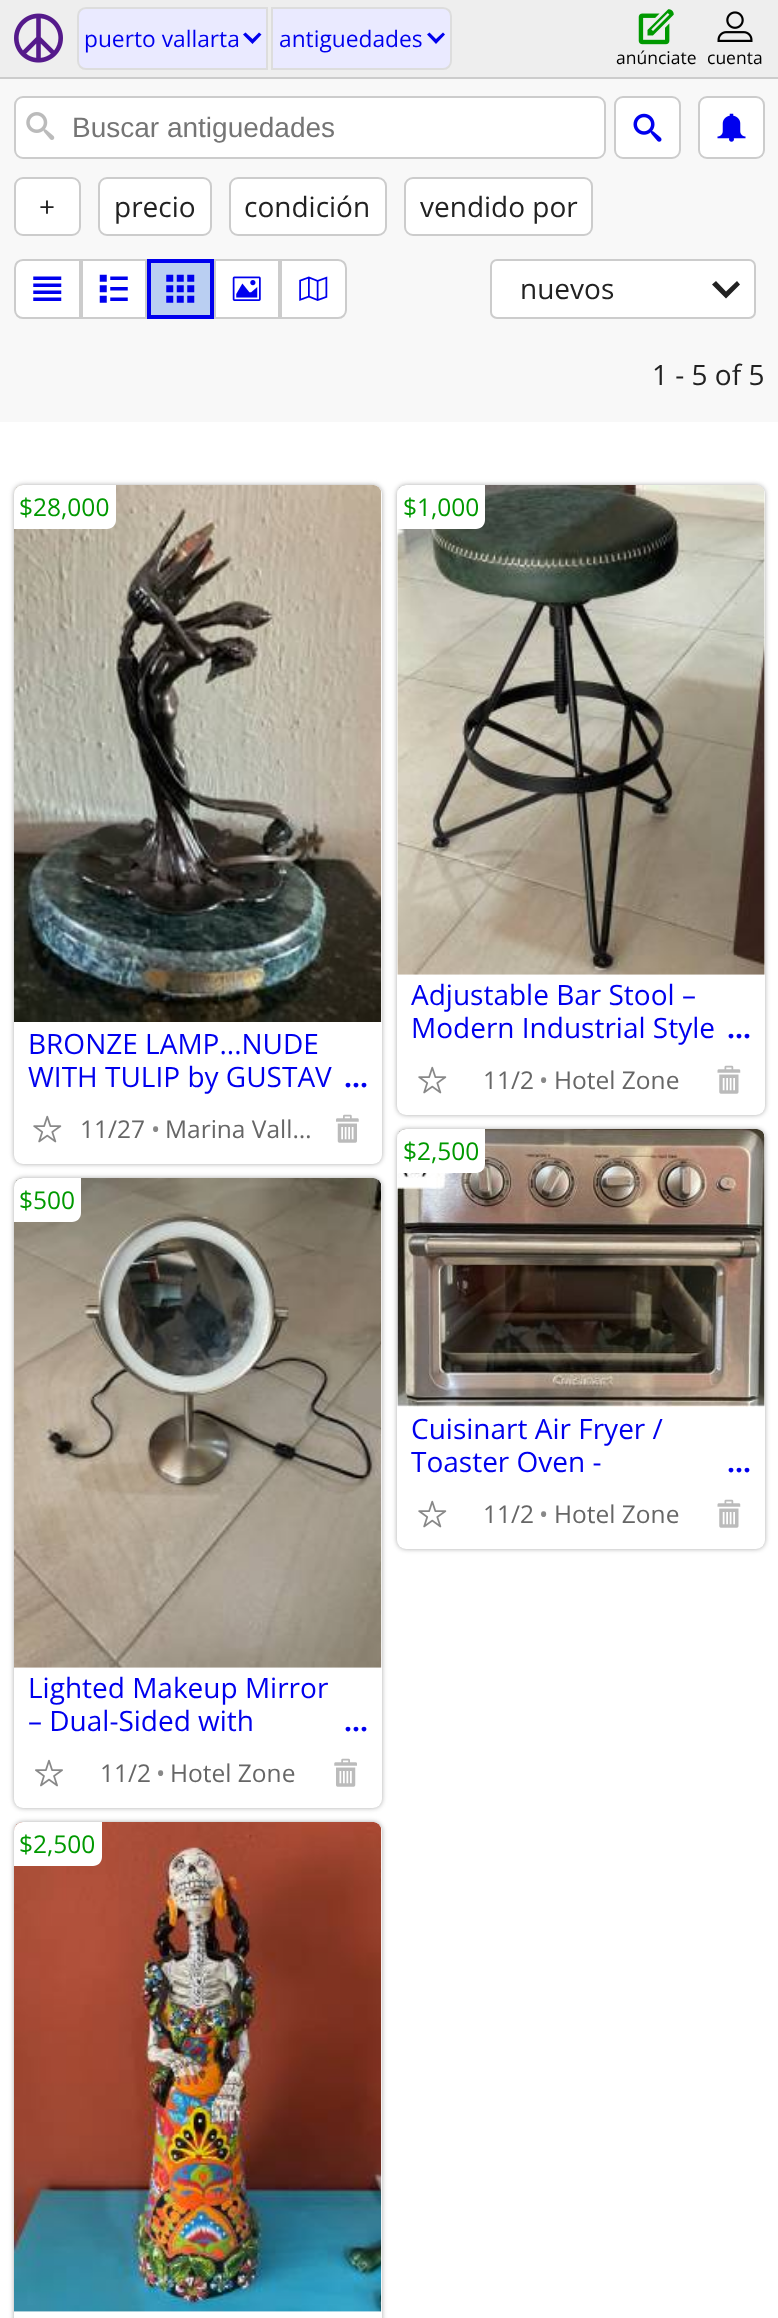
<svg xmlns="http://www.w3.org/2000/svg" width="778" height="2318">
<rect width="100%" height="100%" fill="#fff"/>
<rect width="778" height="77" fill="#eee"/>
<rect y="77" width="778" height="2" fill="#ccc"/>
<image x="14" y="13" width="49" height="50" href="media/1.png"/>
<path d="M86 8h181v61h-181c-4.5 0-8-3.5-8-8v-45c0-4.5 3.5-8 8-8z" fill="#eaeaff" stroke="#ddd" stroke-width="2"/>
<text x="84" y="47" style="font-family:Open Sans;font-size:22.75px;fill:#00e">puerto vallarta</text>
<path d="M261.5 34.5l-2.5-2l-6.5 6.5l-7-6.5l-2.5 2l9.5 9.5z" fill="#00e"/>
<path d="M272 8h171c4.5 0 8 3.5 8 8v45c0 4.5-3.5 8-8 8h-171z" fill="#eaeaff" stroke="#ddd" stroke-width="2"/>
<text x="279" y="47" style="font-family:Open Sans;font-size:22.75px;fill:#00e">antiguedades</text>
<path d="M445 34.5l-2-2l-7 6.5l-6.5-6.5l-2.5 2l9 9.5z" fill="#00e"/>
<image x="638" y="9" width="36" height="36" href="media/2.png"/>
<text x="616" y="64" style="font-family:Open Sans;font-size:17.5px;fill:#000">anúnciate</text>
<image x="717" y="11" width="36" height="31" href="media/3.png"/>
<text x="707" y="64" style="font-family:Open Sans;font-size:17.5px;fill:#000">cuenta</text>
<rect y="79" width="778" height="343" fill="#f8f8f8"/>
<rect x="15" y="97" width="590" height="61" rx="8" fill="#fff" stroke="#ccc" stroke-width="2"/>
<image x="26" y="112" width="29" height="28" href="media/4.png"/>
<text x="72" y="137" style="font-family:Liberation Sans;font-size:28px;fill:#757575">Buscar antiguedades</text>
<rect x="615" y="97" width="65" height="61" rx="8" fill="#fff" stroke="#ccc" stroke-width="2"/>
<image x="633" y="113" width="29" height="29" href="media/5.png"/>
<rect x="699" y="97" width="65" height="61" rx="8" fill="#fff" stroke="#ccc" stroke-width="2"/>
<image x="717" y="113" width="29" height="29" href="media/6.png"/>
<rect x="15" y="178" width="65" height="57" rx="8" fill="#fff" stroke="#ccc" stroke-width="2"/>
<text x="39" y="217" style="font-family:Open Sans;font-size:28px;fill:#222">+</text>
<rect x="99" y="178" width="112" height="57" rx="8" fill="#fff" stroke="#ccc" stroke-width="2"/>
<text x="114" y="217" style="font-family:Open Sans;font-size:28px;fill:#222">precio</text>
<rect x="230" y="178" width="156" height="57" rx="8" fill="#fff" stroke="#ccc" stroke-width="2"/>
<text x="244" y="217" style="font-family:Open Sans;font-size:28px;fill:#222">condición</text>
<rect x="405" y="178" width="187" height="57" rx="8" fill="#fff" stroke="#ccc" stroke-width="2"/>
<text x="420" y="217" style="font-family:Open Sans;font-size:28px;fill:#222">vendido por</text>
<path d="M23 260h57v58h-57c-4.5 0-8-3.5-8-8v-42c0-4.5 3.5-8 8-8z" fill="#fff" stroke="#ccc" stroke-width="2"/>
<image x="33" y="276" width="29" height="25" href="media/7.png"/>
<rect x="82" y="260" width="64" height="58" fill="#fff" stroke="#ccc" stroke-width="2"/>
<image x="99" y="274" width="29" height="29" href="media/8.png"/>
<rect x="149" y="261" width="63" height="56" fill="#bacff2" stroke="#00e" stroke-width="4"/>
<image x="166" y="274" width="29" height="29" href="media/9.png"/>
<rect x="215" y="260" width="64" height="58" fill="#fff" stroke="#ccc" stroke-width="2"/>
<image x="232" y="276" width="29" height="25" href="media/10.png"/>
<path d="M281 260h57c4.5 0 8 3.5 8 8v42c0 4.5-3.5 8-8 8h-57z" fill="#fff" stroke="#ccc" stroke-width="2"/>
<image x="299" y="276" width="29" height="25" href="media/11.png"/>
<rect x="491" y="260" width="264" height="58" rx="6" fill="#fff" stroke="#ccc" stroke-width="2"/>
<text x="520" y="299" style="font-family:Open Sans;font-size:28px;fill:#222">nuevos</text>
<path d="M740 284.5l-3-3.5l-11 10.5l-10-10.5l-4 3.5l14 14z" fill="#222"/>
<text x="652" y="385" style="font-family:Open Sans;font-size:28px;fill:#222">1 - 5 of 5</text>
<rect x="14" y="485" width="368" height="679" rx="9" fill="#aaa" filter="blur(2.5px)"/>
<rect x="14" y="485" width="368" height="679" rx="9" fill="#fff"/>
<image x="14" y="485" width="368" height="537" href="media/12.png"/>
<path d="M23 485h93v35c0 5-4 9-9 9h-93v-35c0-5 4-9 9-9z" fill="#fff"/>
<text x="19" y="516" style="font-family:Open Sans;font-size:24.5px;fill:#090">$28,000</text>
<text x="28" y="1054" style="font-family:Open Sans;font-size:28px;fill:#00e">BRONZE LAMP...NUDE</text>
<text x="28" y="1087" style="font-family:Open Sans;font-size:28px;fill:#00e">WITH TULIP by GUSTAV</text>
<text x="344" y="1087" style="font-family:Open Sans;font-size:28px;font-weight:bold;fill:#00e">...</text>
<image x="33" y="1115" width="29" height="28" href="media/13.png"/>
<text x="80" y="1138" style="font-family:Open Sans;font-size:24.5px;fill:#666">11/27</text>
<text x="151" y="1138" style="font-family:Open Sans;font-size:24.5px;fill:#888">•</text>
<text x="165" y="1138" style="font-family:Open Sans;font-size:24.5px;fill:#666">Marina Vall…</text>
<image x="336" y="1114" width="23" height="29" href="media/14.png"/>
<rect x="14" y="1178" width="368" height="630" rx="9" fill="#aaa" filter="blur(2.5px)"/>
<rect x="14" y="1178" width="368" height="630" rx="9" fill="#fff"/>
<image x="14" y="1178" width="368" height="490" href="media/15.png"/>
<path d="M23 1178h58v35c0 5-4 9-9 9h-58v-35c0-5 4-9 9-9z" fill="#fff"/>
<text x="19" y="1209" style="font-family:Open Sans;font-size:24.5px;fill:#090">$500</text>
<text x="28" y="1698" style="font-family:Open Sans;font-size:28px;fill:#00e">Lighted Makeup Mirror</text>
<text x="28" y="1731" style="font-family:Open Sans;font-size:28px;fill:#00e">– Dual-Sided with</text>
<text x="344" y="1731" style="font-family:Open Sans;font-size:28px;font-weight:bold;fill:#00e">...</text>
<image x="35" y="1759" width="28" height="28" href="media/16.png"/>
<text x="100" y="1782" style="font-family:Open Sans;font-size:24.5px;fill:#666">11/2</text>
<text x="156" y="1782" style="font-family:Open Sans;font-size:24.5px;fill:#888">•</text>
<text x="170" y="1782" style="font-family:Open Sans;font-size:24.5px;fill:#666">Hotel Zone</text>
<image x="334" y="1758" width="23" height="29" href="media/17.png"/>
<rect x="14" y="1822" width="368" height="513" rx="9" fill="#aaa" filter="blur(2.5px)"/>
<rect x="14" y="1822" width="368" height="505" rx="9" fill="#fff"/>
<image x="14" y="1822" width="368" height="490" href="media/18.png"/>
<path d="M23 1822h79v35c0 5-4 9-9 9h-79v-35c0-5 4-9 9-9z" fill="#fff"/>
<text x="19" y="1853" style="font-family:Open Sans;font-size:24.5px;fill:#090">$2,500</text>
<rect x="397" y="485" width="368" height="630" rx="9" fill="#aaa" filter="blur(2.5px)"/>
<rect x="397" y="485" width="368" height="630" rx="9" fill="#fff"/>
<image x="397" y="485" width="368" height="490" href="media/19.png"/>
<path d="M406 485h79v35c0 5-4 9-9 9h-79v-35c0-5 4-9 9-9z" fill="#fff"/>
<text x="403" y="516" style="font-family:Open Sans;font-size:24.5px;fill:#090">$1,000</text>
<text x="411" y="1005" style="font-family:Open Sans;font-size:28px;fill:#00e">Adjustable Bar Stool –</text>
<text x="411" y="1038" style="font-family:Open Sans;font-size:28px;fill:#00e">Modern Industrial Style</text>
<text x="727" y="1038" style="font-family:Open Sans;font-size:28px;font-weight:bold;fill:#00e">...</text>
<image x="418" y="1066" width="29" height="28" href="media/13.png"/>
<text x="483" y="1089" style="font-family:Open Sans;font-size:24.5px;fill:#666">11/2</text>
<text x="539" y="1089" style="font-family:Open Sans;font-size:24.5px;fill:#888">•</text>
<text x="554" y="1089" style="font-family:Open Sans;font-size:24.5px;fill:#666">Hotel Zone</text>
<image x="717" y="1065" width="24" height="29" href="media/20.png"/>
<rect x="397" y="1129" width="368" height="420" rx="9" fill="#aaa" filter="blur(2.5px)"/>
<rect x="397" y="1129" width="368" height="420" rx="9" fill="#fff"/>
<image x="397" y="1129" width="368" height="278" href="media/21.png"/>
<path d="M406 1129h79v35c0 5-4 9-9 9h-79v-35c0-5 4-9 9-9z" fill="#fff"/>
<text x="403" y="1160" style="font-family:Open Sans;font-size:24.5px;fill:#090">$2,500</text>
<text x="411" y="1439" style="font-family:Open Sans;font-size:28px;fill:#00e">Cuisinart Air Fryer /</text>
<text x="411" y="1472" style="font-family:Open Sans;font-size:28px;fill:#00e">Toaster Oven -</text>
<text x="727" y="1472" style="font-family:Open Sans;font-size:28px;font-weight:bold;fill:#00e">...</text>
<image x="418" y="1500" width="29" height="28" href="media/13.png"/>
<text x="483" y="1523" style="font-family:Open Sans;font-size:24.5px;fill:#666">11/2</text>
<text x="539" y="1523" style="font-family:Open Sans;font-size:24.5px;fill:#888">•</text>
<text x="554" y="1523" style="font-family:Open Sans;font-size:24.5px;fill:#666">Hotel Zone</text>
<image x="717" y="1499" width="24" height="29" href="media/20.png"/>
</svg>
